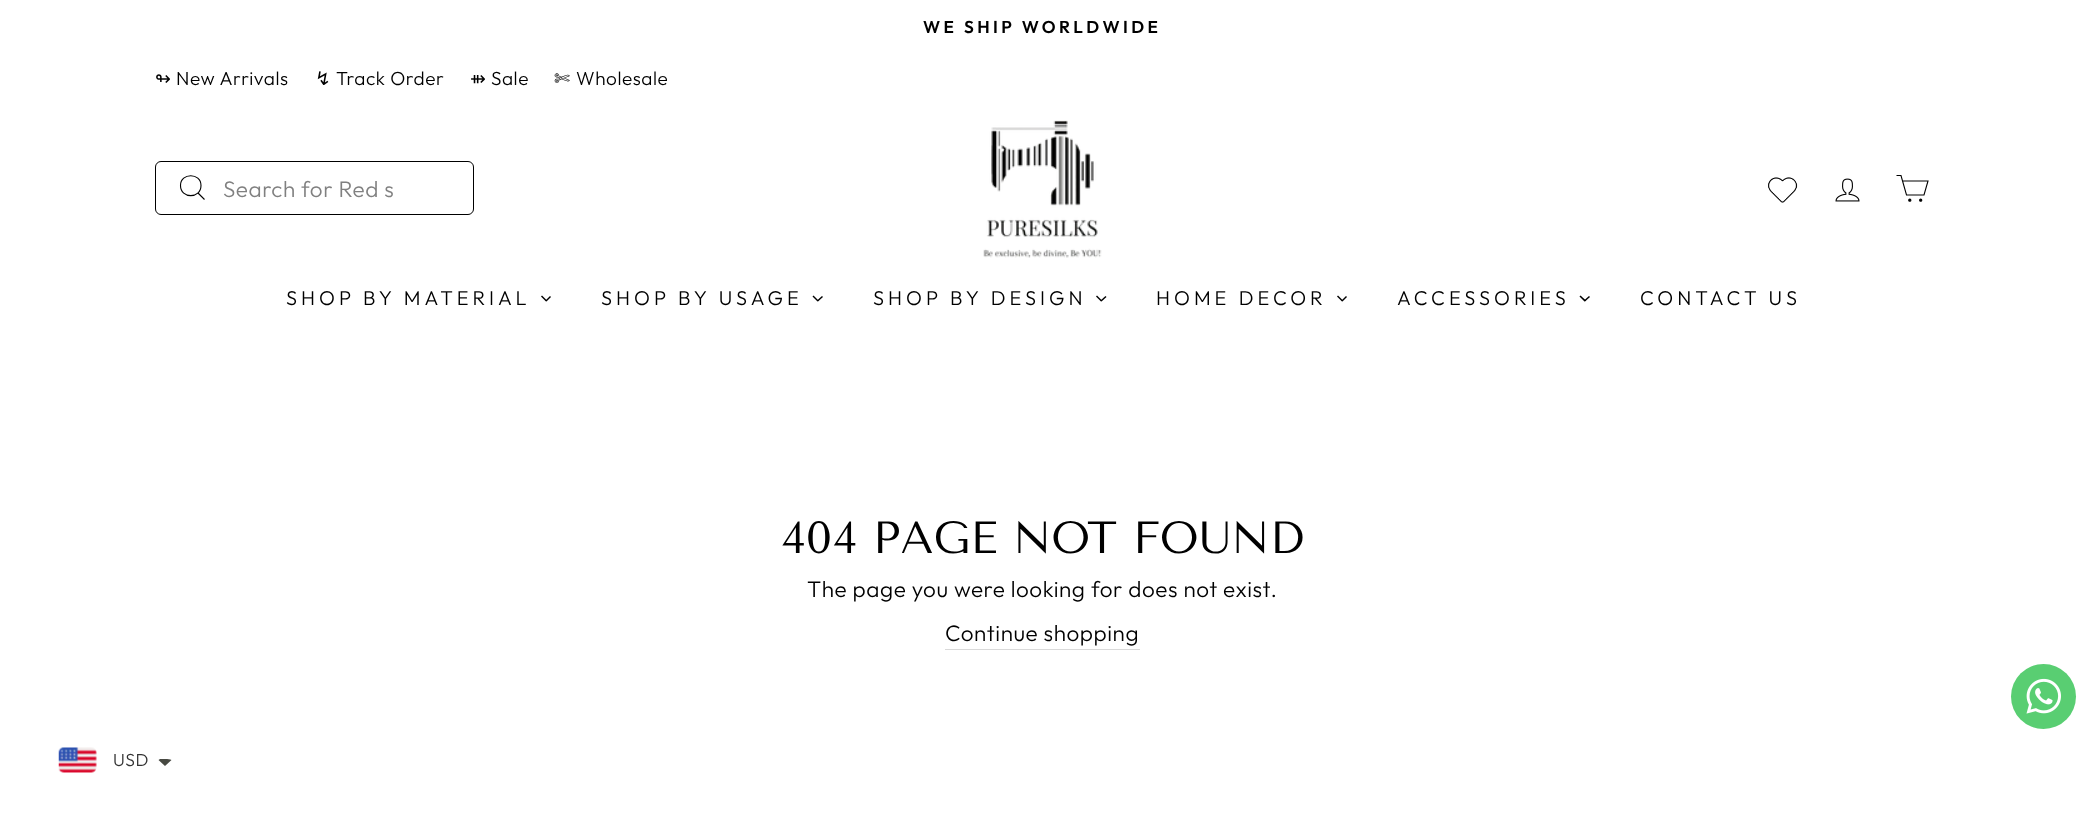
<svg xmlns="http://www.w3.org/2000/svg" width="2085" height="834">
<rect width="100%" height="100%" fill="#fff"/>
<text x="923" y="33" style="font-family:Outfit;font-size:17.25px;font-weight:600;letter-spacing:3.4px;fill:#000">WE SHIP WORLDWIDE</text>
<text x="155" y="85" style="font-family:DejaVu Sans;font-size:19px;letter-spacing:0.55px;fill:#000">↬</text>
<text x="176" y="85" style="font-family:Outfit;font-size:19px;font-weight:300;letter-spacing:0.55px;fill:#000">New Arrivals</text>
<text x="315" y="85" style="font-family:DejaVu Sans;font-size:19px;letter-spacing:0.55px;fill:#000">↯</text>
<text x="336" y="85" style="font-family:Outfit;font-size:19px;font-weight:300;letter-spacing:0.55px;fill:#000">Track Order</text>
<text x="470" y="85" style="font-family:DejaVu Sans;font-size:19px;letter-spacing:0.55px;fill:#000">⇻</text>
<text x="491" y="85" style="font-family:Outfit;font-size:19px;font-weight:300;letter-spacing:0.55px;fill:#000">Sale</text>
<text x="554" y="85" style="font-family:DejaVu Sans;font-size:19px;letter-spacing:0.55px;fill:#000">✄</text>
<text x="576" y="85" style="font-family:Outfit;font-size:19px;font-weight:300;letter-spacing:0.55px;fill:#000">Wholesale</text>
<rect x="155.5" y="161.5" width="318" height="53" rx="5.5" fill="none" stroke="#000"/>
<path d="M201 185.5c0 13.5-20.5 13.5-20.5 0c0-13 20.5-13 20.5 0zm3.5 14l-6.5-6.5" fill="none" stroke="#000" stroke-width="1.1"/>
<text x="223" y="197" style="font-family:Outfit;font-size:22.5px;font-weight:300;letter-spacing:0.55px;fill:#808080">Search for Red s</text>
<image x="983" y="120" width="119" height="138" href="media/1.png"/>
<image x="1768" y="177" width="30" height="26" href="media/2.png"/>
<image x="1835" y="178" width="25" height="24" href="media/3.png"/>
<path d="M1902.5 181h25.5l-4 14h-17.5l-5.5-19.5h-4.5" fill="none" stroke="#000" stroke-width="1.1"/>
<circle cx="1909.8" cy="200.2" r="1.1" fill="#000" stroke="#000" stroke-width="1.1"/>
<circle cx="1920.7" cy="200.2" r="1.1" fill="#000" stroke="#000" stroke-width="1.1"/>
<text x="286" y="305" style="font-family:Outfit;font-size:20px;font-weight:300;letter-spacing:4px;fill:#000">SHOP BY MATERIAL</text>
<path d="M550 296l1 1l-4.5 4.5l-1-1z" fill="#000"/>
<path d="M542 295.5l5 5l-1 1l-5-5z" fill="#000"/>
<text x="601" y="305" style="font-family:Outfit;font-size:20px;font-weight:300;letter-spacing:4px;fill:#000">SHOP BY USAGE</text>
<path d="M822 296l1 1l-5 4.5l-1-1z" fill="#000"/>
<path d="M813.5 295.5l5 5l-1 1l-5-5z" fill="#000"/>
<text x="873" y="305" style="font-family:Outfit;font-size:20px;font-weight:300;letter-spacing:4px;fill:#000">SHOP BY DESIGN</text>
<path d="M1105.5 296l1 1l-5 4.5l-1-1z" fill="#000"/>
<path d="M1097 295.5l5 5l-1 1l-5-5z" fill="#000"/>
<text x="1156" y="305" style="font-family:Outfit;font-size:20px;font-weight:300;letter-spacing:4px;fill:#000">HOME DECOR</text>
<path d="M1346 296l1 1l-4.5 4.5l-1-1z" fill="#000"/>
<path d="M1338 295.5l5 5l-1 1l-5-5z" fill="#000"/>
<text x="1397" y="305" style="font-family:Outfit;font-size:20px;font-weight:300;letter-spacing:4px;fill:#000">ACCESSORIES</text>
<path d="M1589 296l1 1l-5 4.5l-1-1z" fill="#000"/>
<path d="M1580.5 295.5l5.5 5l-1.5 1l-5-5z" fill="#000"/>
<text x="1640" y="305" style="font-family:Outfit;font-size:20px;font-weight:300;letter-spacing:4px;fill:#000">CONTACT US</text>
<text x="781" y="553" style="font-family:Tenor Sans;font-size:45px;fill:#000">404 PAGE NOT FOUND</text>
<text x="807" y="597" style="font-family:Outfit;font-size:22.5px;font-weight:300;letter-spacing:0.55px;fill:#000">The page you were looking for does not exist.</text>
<rect x="945" y="649" width="195" height="1" fill="#d9d9d9"/>
<text x="945" y="641" style="font-family:Outfit;font-size:22.5px;font-weight:300;letter-spacing:0.55px;fill:#000">Continue shopping</text>
<circle cx="2043.5" cy="696.5" r="32.5" fill="#59ce72"/>
<image x="2026" y="678" width="35" height="36" href="media/4.png"/>
<image x="58" y="747" width="39" height="26" href="media/5.png"/>
<text x="113" y="766" style="font-family:Outfit;font-size:17.5px;font-weight:300;letter-spacing:0.55px;fill:#333">USD</text>
<path d="M161 759c2.5 0 8.5-.5 10.5 1l-6.5 6l-6.5-6c.5-.5 1.5-1 2.5-1z" fill="#474942"/>
</svg>
